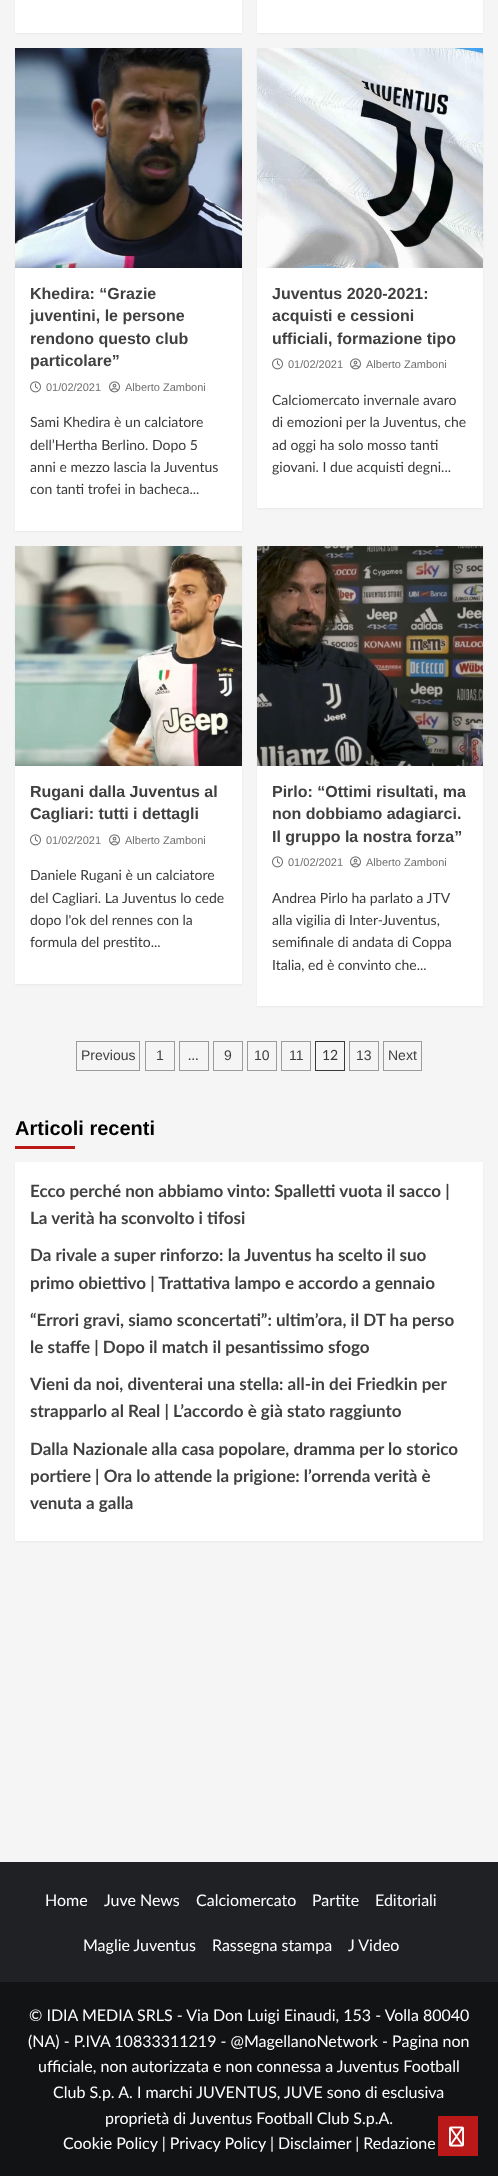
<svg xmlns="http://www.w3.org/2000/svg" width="498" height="2176">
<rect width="100%" height="100%" fill="#f5f5f5"/>
<rect x="15" y="-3" width="227" height="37" fill="#0000000d" filter="blur(1px)"/>
<rect x="15" width="227" height="33" fill="#fff"/>
<rect x="257" y="-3" width="226" height="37" fill="#0000000d" filter="blur(1px)"/>
<rect x="257" width="226" height="33" fill="#fff"/>
<rect x="15" y="49" width="227" height="483" fill="#0000000d" filter="blur(1px)"/>
<rect x="15" y="268" width="227" height="263" fill="#fff"/>
<image x="15" y="48" width="227" height="220" href="media/1.png"/>
<text x="30" y="299" style="font-family:Liberation Sans;font-size:16px;font-weight:bold;fill:#404040">Khedira: “Grazie</text>
<text x="30" y="321" style="font-family:Liberation Sans;font-size:16px;font-weight:bold;fill:#404040">juventini, le persone</text>
<text x="30" y="344" style="font-family:Liberation Sans;font-size:16px;font-weight:bold;fill:#404040">rendono questo club</text>
<text x="30" y="366" style="font-family:Liberation Sans;font-size:16px;font-weight:bold;fill:#404040">particolare”</text>
<image x="30" y="381" width="11" height="12" href="media/2.png"/>
<text x="46" y="391" style="font-family:Liberation Sans;font-size:11px;fill:#707070">01/02/2021</text>
<image x="109" y="381" width="11" height="12" href="media/3.png"/>
<text x="125" y="391" style="font-family:Liberation Sans;font-size:11px;fill:#707070">Alberto Zamboni</text>
<text x="30" y="427" style="font-family:Lato;font-size:14px;fill:#3a3a3a">Sami Khedira è un calciatore</text>
<text x="30" y="450" style="font-family:Lato;font-size:14px;fill:#3a3a3a">dell’Hertha Berlino. Dopo 5</text>
<text x="30" y="472" style="font-family:Lato;font-size:14px;fill:#3a3a3a">anni e mezzo lascia la Juventus</text>
<text x="30" y="494" style="font-family:Lato;font-size:14px;fill:#3a3a3a">con tanti trofei in bacheca...</text>
<rect x="257" y="49" width="226" height="460" fill="#0000000d" filter="blur(1px)"/>
<rect x="257" y="268" width="226" height="240" fill="#fff"/>
<image x="257" y="48" width="226" height="220" href="media/4.png"/>
<text x="272" y="299" style="font-family:Liberation Sans;font-size:16px;font-weight:bold;fill:#404040">Juventus 2020-2021:</text>
<text x="272" y="321" style="font-family:Liberation Sans;font-size:16px;font-weight:bold;fill:#404040">acquisti e cessioni</text>
<text x="272" y="344" style="font-family:Liberation Sans;font-size:16px;font-weight:bold;fill:#404040">ufficiali, formazione tipo</text>
<image x="272" y="358" width="11" height="12" href="media/2.png"/>
<text x="288" y="368" style="font-family:Liberation Sans;font-size:11px;fill:#707070">01/02/2021</text>
<image x="350" y="358" width="11" height="12" href="media/3.png"/>
<text x="366" y="368" style="font-family:Liberation Sans;font-size:11px;fill:#707070">Alberto Zamboni</text>
<text x="272" y="405" style="font-family:Lato;font-size:14px;fill:#3a3a3a">Calciomercato invernale avaro</text>
<text x="272" y="427" style="font-family:Lato;font-size:14px;fill:#3a3a3a">di emozioni per la Juventus, che</text>
<text x="272" y="450" style="font-family:Lato;font-size:14px;fill:#3a3a3a">ad oggi ha solo mosso tanti</text>
<text x="272" y="472" style="font-family:Lato;font-size:14px;fill:#3a3a3a">giovani. I due acquisti degni...</text>
<rect x="15" y="547" width="227" height="438" fill="#0000000d" filter="blur(1px)"/>
<rect x="15" y="766" width="227" height="218" fill="#fff"/>
<image x="15" y="546" width="227" height="220" href="media/5.png"/>
<text x="30" y="797" style="font-family:Liberation Sans;font-size:16px;font-weight:bold;fill:#404040">Rugani dalla Juventus al</text>
<text x="30" y="819" style="font-family:Liberation Sans;font-size:16px;font-weight:bold;fill:#404040">Cagliari: tutti i dettagli</text>
<image x="30" y="834" width="11" height="12" href="media/2.png"/>
<text x="46" y="844" style="font-family:Liberation Sans;font-size:11px;fill:#707070">01/02/2021</text>
<image x="109" y="834" width="11" height="12" href="media/3.png"/>
<text x="125" y="844" style="font-family:Liberation Sans;font-size:11px;fill:#707070">Alberto Zamboni</text>
<text x="30" y="880" style="font-family:Lato;font-size:14px;fill:#3a3a3a">Daniele Rugani è un calciatore</text>
<text x="30" y="903" style="font-family:Lato;font-size:14px;fill:#3a3a3a">del Cagliari. La Juventus lo cede</text>
<text x="30" y="925" style="font-family:Lato;font-size:14px;fill:#3a3a3a">dopo l'ok del rennes con la</text>
<text x="30" y="947" style="font-family:Lato;font-size:14px;fill:#3a3a3a">formula del prestito...</text>
<rect x="257" y="547" width="226" height="460" fill="#0000000d" filter="blur(1px)"/>
<rect x="257" y="766" width="226" height="240" fill="#fff"/>
<image x="257" y="546" width="226" height="220" href="media/6.png"/>
<text x="272" y="797" style="font-family:Liberation Sans;font-size:16px;font-weight:bold;fill:#404040">Pirlo: “Ottimi risultati, ma</text>
<text x="272" y="819" style="font-family:Liberation Sans;font-size:16px;font-weight:bold;fill:#404040">non dobbiamo adagiarci.</text>
<text x="272" y="842" style="font-family:Liberation Sans;font-size:16px;font-weight:bold;fill:#404040">Il gruppo la nostra forza”</text>
<image x="272" y="856" width="11" height="12" href="media/2.png"/>
<text x="288" y="866" style="font-family:Liberation Sans;font-size:11px;fill:#707070">01/02/2021</text>
<image x="350" y="856" width="11" height="12" href="media/3.png"/>
<text x="366" y="866" style="font-family:Liberation Sans;font-size:11px;fill:#707070">Alberto Zamboni</text>
<text x="272" y="903" style="font-family:Lato;font-size:14px;fill:#3a3a3a">Andrea Pirlo ha parlato a JTV</text>
<text x="272" y="925" style="font-family:Lato;font-size:14px;fill:#3a3a3a">alla vigilia di Inter-Juventus,</text>
<text x="272" y="947" style="font-family:Lato;font-size:14px;fill:#3a3a3a">semifinale di andata di Coppa</text>
<text x="272" y="970" style="font-family:Lato;font-size:14px;fill:#3a3a3a">Italia, ed è convinto che...</text>
<rect x="76.5" y="1041.5" width="63" height="29" fill="none" stroke="#9b9b9b"/>
<text x="81" y="1060" style="font-family:Liberation Sans;font-size:14px;fill:#404040">Previous</text>
<rect x="145.5" y="1041.5" width="29" height="29" fill="none" stroke="#9b9b9b"/>
<text x="156" y="1060" style="font-family:Liberation Sans;font-size:14px;fill:#404040">1</text>
<rect x="179.5" y="1041.5" width="29" height="29" fill="none" stroke="#989898"/>
<text x="188" y="1060" style="font-family:Lato;font-size:14px;fill:#3a3a3a">…</text>
<rect x="213.5" y="1041.5" width="29" height="29" fill="none" stroke="#9b9b9b"/>
<text x="224" y="1060" style="font-family:Liberation Sans;font-size:14px;fill:#404040">9</text>
<rect x="247.5" y="1041.5" width="29" height="29" fill="none" stroke="#9b9b9b"/>
<text x="254" y="1060" style="font-family:Liberation Sans;font-size:14px;fill:#404040">10</text>
<rect x="281.5" y="1041.5" width="29" height="29" fill="none" stroke="#9b9b9b"/>
<text x="289" y="1060" style="font-family:Liberation Sans;font-size:14px;fill:#404040">11</text>
<rect x="315.5" y="1041.5" width="29" height="29" fill="none" stroke="#3a3a3a"/>
<text x="322" y="1060" style="font-family:Lato;font-size:14px;fill:#3a3a3a">12</text>
<rect x="349.5" y="1041.5" width="29" height="29" fill="none" stroke="#9b9b9b"/>
<text x="356" y="1060" style="font-family:Liberation Sans;font-size:14px;fill:#404040">13</text>
<rect x="383.5" y="1041.5" width="38" height="29" fill="none" stroke="#9b9b9b"/>
<text x="388" y="1060" style="font-family:Liberation Sans;font-size:14px;fill:#404040">Next</text>
<text x="15" y="1135" style="font-family:Liberation Sans;font-size:20px;font-weight:bold;fill:#000">Articoli recenti</text>
<rect x="15" y="1146" width="60" height="3" fill="#bb1919"/>
<rect x="15" y="1163" width="468" height="379" fill="#0000000d" filter="blur(1px)"/>
<rect x="15" y="1162" width="468" height="379" fill="#fff"/>
<text x="30" y="1197" style="font-family:Lato;font-size:17px;font-weight:bold;fill:#404040">Ecco perché non abbiamo vinto: Spalletti vuota il sacco |</text>
<text x="30" y="1224" style="font-family:Lato;font-size:17px;font-weight:bold;fill:#404040">La verità ha sconvolto i tifosi</text>
<text x="30" y="1261" style="font-family:Lato;font-size:17px;font-weight:bold;fill:#404040">Da rivale a super rinforzo: la Juventus ha scelto il suo</text>
<text x="30" y="1289" style="font-family:Lato;font-size:17px;font-weight:bold;fill:#404040">primo obiettivo | Trattativa lampo e accordo a gennaio</text>
<text x="30" y="1326" style="font-family:Lato;font-size:17px;font-weight:bold;fill:#404040">“Errori gravi, siamo sconcertati”: ultim’ora, il DT ha perso</text>
<text x="30" y="1353" style="font-family:Lato;font-size:17px;font-weight:bold;fill:#404040">le staffe | Dopo il match il pesantissimo sfogo</text>
<text x="30" y="1390" style="font-family:Lato;font-size:17px;font-weight:bold;fill:#404040">Vieni da noi, diventerai una stella: all-in dei Friedkin per</text>
<text x="30" y="1417" style="font-family:Lato;font-size:17px;font-weight:bold;fill:#404040">strapparlo al Real | L’accordo è già stato raggiunto</text>
<text x="30" y="1455" style="font-family:Lato;font-size:17px;font-weight:bold;fill:#404040">Dalla Nazionale alla casa popolare, dramma per lo storico</text>
<text x="30" y="1482" style="font-family:Lato;font-size:17px;font-weight:bold;fill:#404040">portiere | Ora lo attende la prigione: l’orrenda verità è</text>
<text x="30" y="1509" style="font-family:Lato;font-size:17px;font-weight:bold;fill:#404040">venuta a galla</text>
<rect y="1862" width="498" height="120" fill="#1f2125"/>
<text x="45" y="1906" style="font-family:Lato;font-size:16px;fill:#fff">Home</text>
<text x="104" y="1906" style="font-family:Lato;font-size:16px;fill:#fff">Juve News</text>
<text x="196" y="1906" style="font-family:Lato;font-size:16px;fill:#fff">Calciomercato</text>
<text x="312" y="1906" style="font-family:Lato;font-size:16px;fill:#fff">Partite</text>
<text x="375" y="1906" style="font-family:Lato;font-size:16px;fill:#fff">Editoriali</text>
<text x="83" y="1951" style="font-family:Lato;font-size:16px;fill:#fff">Maglie Juventus</text>
<text x="212" y="1951" style="font-family:Lato;font-size:16px;fill:#fff">Rassegna stampa</text>
<text x="348" y="1951" style="font-family:Lato;font-size:16px;fill:#fff">J Video</text>
<rect y="1982" width="498" height="194" fill="#121314"/>
<text x="29" y="2021" style="font-family:Lato;font-size:16px;fill:#fff">© IDIA MEDIA SRLS - Via Don Luigi Einaudi, 153 - Volla 80040</text>
<text x="28" y="2047" style="font-family:Lato;font-size:16px;fill:#fff">(NA) - P.IVA 10833311219 - @MagellanoNetwork - Pagina non</text>
<text x="38" y="2072" style="font-family:Lato;font-size:16px;fill:#fff">ufficiale, non autorizzata e non connessa a Juventus Football</text>
<text x="53" y="2098" style="font-family:Lato;font-size:16px;fill:#fff">Club S.p. A. I marchi JUVENTUS, JUVE sono di esclusiva</text>
<text x="105" y="2124" style="font-family:Lato;font-size:16px;fill:#fff">proprietà di Juventus Football Club S.p.A.</text>
<text x="63" y="2149" style="font-family:Lato;font-size:16px;fill:#fff">Cookie Policy | Privacy Policy | Disclaimer | Redazione</text>
<rect x="438" y="2116" width="40" height="40" fill="#bb1919"/>
<image x="449" y="2126" width="15" height="21" href="media/7.png"/>
</svg>
